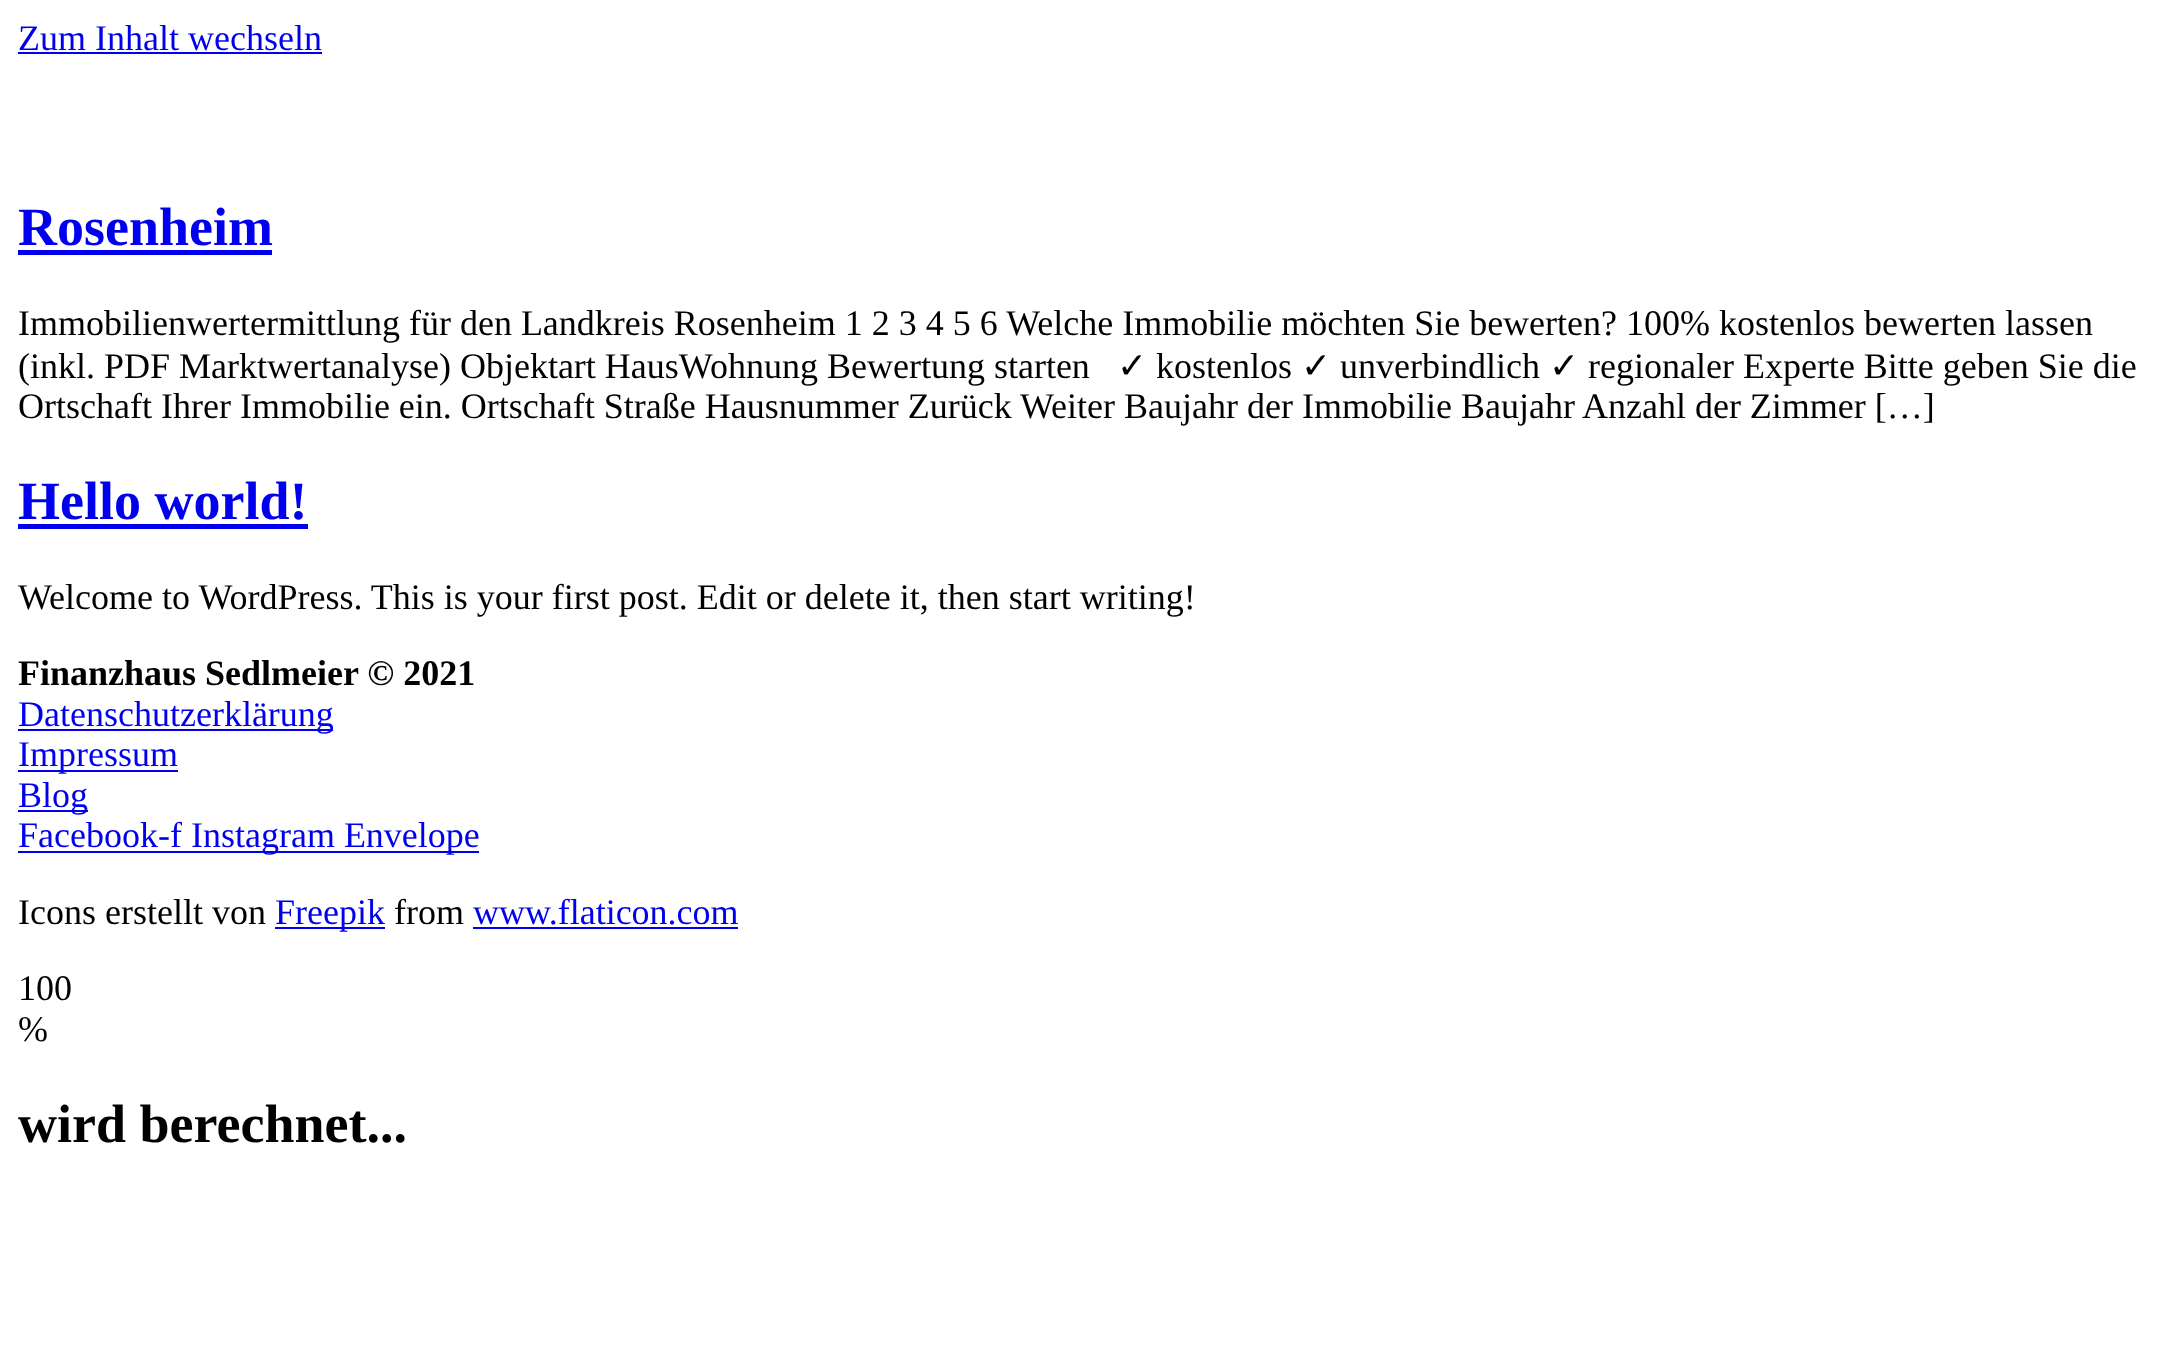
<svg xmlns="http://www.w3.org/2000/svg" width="2184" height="1362">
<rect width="100%" height="100%" fill="#fff"/>
<text x="18" y="50" style="font-family:Liberation Serif;font-size:36px;fill:#00e">Zum Inhalt wechseln</text>
<rect x="18" y="52" width="304" height="2" fill="#00e"/>
<text x="18" y="245" style="font-family:Liberation Serif;font-size:54px;font-weight:bold;fill:#00e">Rosenheim</text>
<rect x="18" y="250" width="254" height="5" fill="#00e"/>
<text x="18" y="335" style="font-family:Liberation Serif;font-size:36px;fill:#000">Immobilienwertermittlung für den Landkreis Rosenheim 1 2 3 4 5 6 Welche Immobilie möchten Sie bewerten? 100% kostenlos bewerten lassen</text>
<text x="18" y="378" style="font-family:Liberation Serif;font-size:36px;fill:#000">(inkl. PDF Marktwertanalyse) Objektart HausWohnung Bewertung starten</text>
<text x="1117" y="378" style="font-family:DejaVu Sans;font-size:36px;fill:#000">✓</text>
<text x="1156" y="378" style="font-family:Liberation Serif;font-size:36px;fill:#000">kostenlos</text>
<text x="1301" y="378" style="font-family:DejaVu Sans;font-size:36px;fill:#000">✓</text>
<text x="1340" y="378" style="font-family:Liberation Serif;font-size:36px;fill:#000">unverbindlich</text>
<text x="1549" y="378" style="font-family:DejaVu Sans;font-size:36px;fill:#000">✓</text>
<text x="1588" y="378" style="font-family:Liberation Serif;font-size:36px;fill:#000">regionaler Experte Bitte geben Sie die</text>
<text x="18" y="418" style="font-family:Liberation Serif;font-size:36px;fill:#000">Ortschaft Ihrer Immobilie ein. Ortschaft Straße Hausnummer Zurück Weiter Baujahr der Immobilie Baujahr Anzahl der Zimmer […]</text>
<text x="18" y="519" style="font-family:Liberation Serif;font-size:54px;font-weight:bold;fill:#00e">Hello world!</text>
<rect x="18" y="524" width="290" height="5" fill="#00e"/>
<text x="18" y="609" style="font-family:Liberation Serif;font-size:36px;fill:#000">Welcome to WordPress. This is your first post. Edit or delete it, then start writing!</text>
<text x="18" y="685" style="font-family:Liberation Serif;font-size:36px;font-weight:bold;fill:#000">Finanzhaus Sedlmeier © 2021</text>
<rect x="18" y="729" width="315" height="2" fill="#00e"/>
<text x="18" y="726" style="font-family:Liberation Serif;font-size:36px;fill:#00e">Datenschutzerklärung</text>
<rect x="18" y="770" width="160" height="2" fill="#00e"/>
<text x="18" y="766" style="font-family:Liberation Serif;font-size:36px;fill:#00e">Impressum</text>
<rect x="18" y="810" width="70" height="2" fill="#00e"/>
<text x="18" y="807" style="font-family:Liberation Serif;font-size:36px;fill:#00e">Blog</text>
<rect x="18" y="851" width="461" height="2" fill="#00e"/>
<text x="18" y="847" style="font-family:Liberation Serif;font-size:36px;fill:#00e">Facebook-f Instagram Envelope</text>
<text x="18" y="924" style="font-family:Liberation Serif;font-size:36px;fill:#000">Icons erstellt von</text>
<rect x="275" y="927" width="110" height="2" fill="#00e"/>
<text x="275" y="924" style="font-family:Liberation Serif;font-size:36px;fill:#00e">Freepik</text>
<text x="394" y="924" style="font-family:Liberation Serif;font-size:36px;fill:#000">from</text>
<text x="473" y="924" style="font-family:Liberation Serif;font-size:36px;fill:#00e">www.flaticon.com</text>
<rect x="473" y="927" width="265" height="2" fill="#00e"/>
<text x="18" y="1000" style="font-family:Liberation Serif;font-size:36px;fill:#000">100</text>
<text x="18" y="1041" style="font-family:Liberation Serif;font-size:36px;fill:#000">%</text>
<text x="18" y="1142" style="font-family:Liberation Serif;font-size:54px;font-weight:bold;fill:#000">wird berechnet...</text>
</svg>
